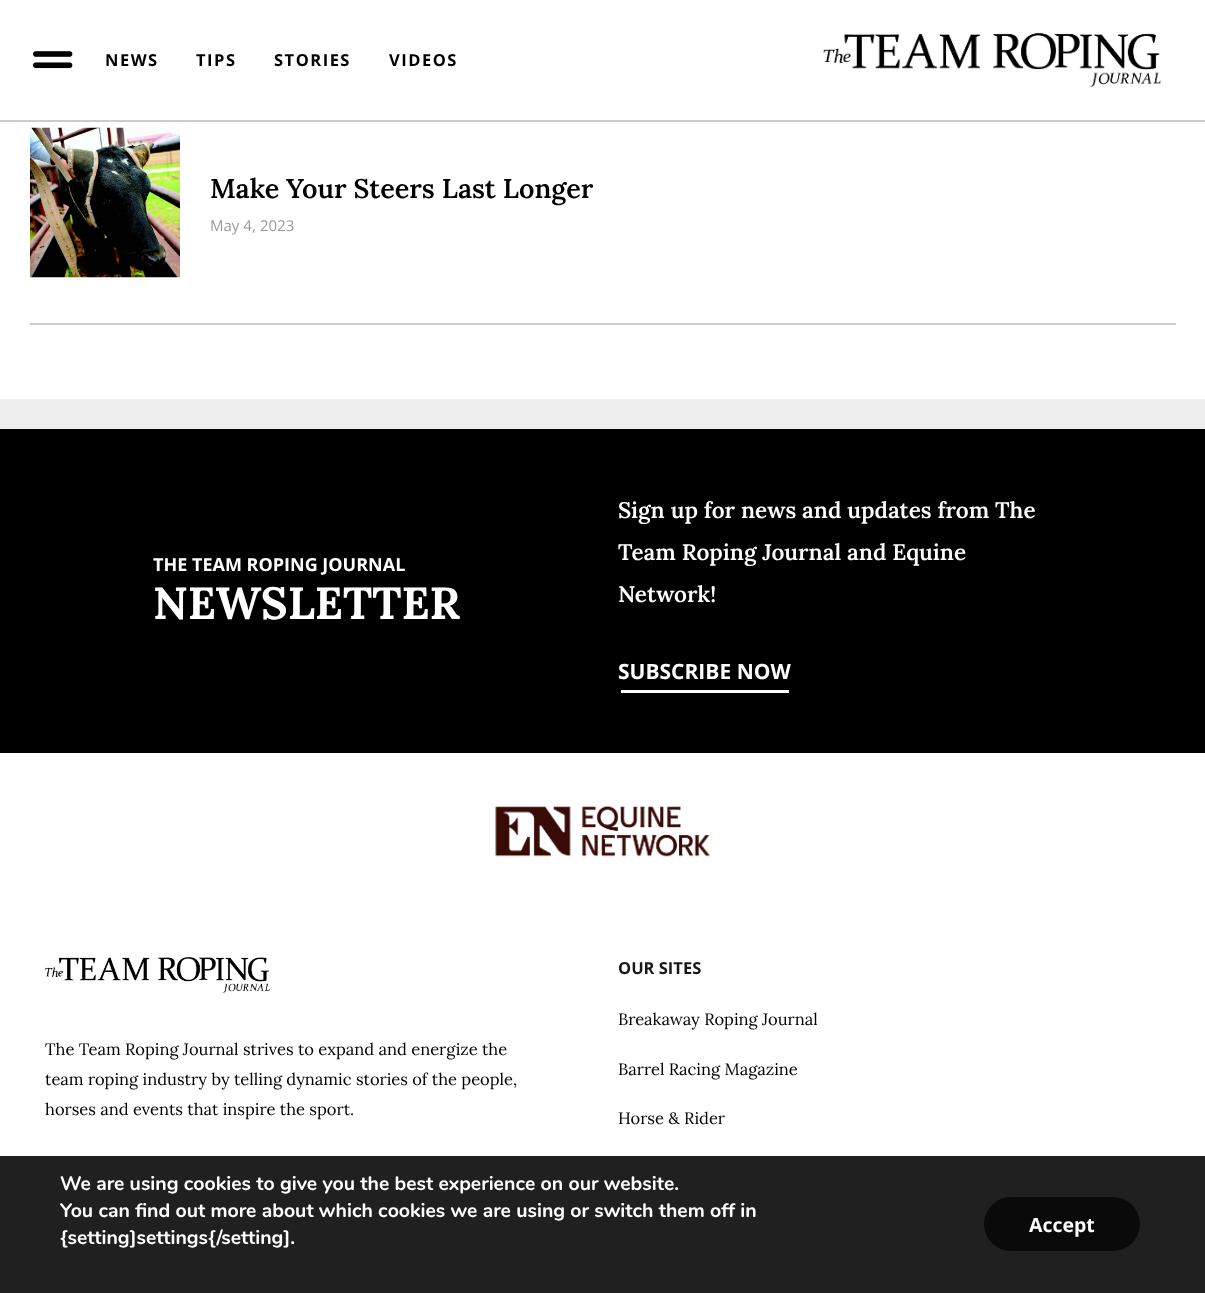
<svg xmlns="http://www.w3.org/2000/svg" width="1205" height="1293">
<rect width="100%" height="100%" fill="#fff"/>
<rect y="120" width="1205" height="2" fill="#ccc"/>
<image x="33" y="51" width="40" height="18" href="media/1.png"/>
<text x="105" y="66" style="font-family:Open Sans;font-size:16.5px;font-weight:bold;letter-spacing:1.5px;fill:#000">NEWS</text>
<text x="196" y="66" style="font-family:Open Sans;font-size:16.5px;font-weight:bold;letter-spacing:1.5px;fill:#000">TIPS</text>
<text x="274" y="66" style="font-family:Open Sans;font-size:16.5px;font-weight:bold;letter-spacing:1.5px;fill:#000">STORIES</text>
<text x="389" y="66" style="font-family:Open Sans;font-size:16.5px;font-weight:bold;letter-spacing:1.5px;fill:#000">VIDEOS</text>
<image x="823" y="32" width="338" height="55" href="media/2.png"/>
<image x="30" y="127" width="150" height="151" href="media/3.png"/>
<text x="210" y="198" style="font-family:Lora;font-size:27px;font-weight:600;fill:#000">Make Your Steers Last Longer</text>
<text x="210" y="231" style="font-family:Open Sans;font-size:15px;fill:#999">May 4</text>
<text x="252" y="231" style="font-family:'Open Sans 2';font-size:15px;fill:#999">,</text>
<text x="260" y="231" style="font-family:Open Sans;font-size:15px;fill:#999">2023</text>
<rect x="30" y="323" width="1146" height="2" fill="#ccc"/>
<rect y="399" width="1205" height="30" fill="#eee"/>
<rect y="429" width="1205" height="324" fill="#000"/>
<text x="153" y="571" style="font-family:Open Sans;font-size:18px;font-weight:bold;fill:#fff">THE TEAM ROPING JOURNAL</text>
<text x="153" y="619" style="font-family:Lora;font-size:45px;font-weight:bold;fill:#fff">NEWSLETTER</text>
<text x="618" y="518" style="font-family:Lora;font-size:22.5px;font-weight:600;fill:#fff">Sign up for news and updates from The</text>
<text x="618" y="560" style="font-family:Lora;font-size:22.5px;font-weight:600;fill:#fff">Team Roping Journal and Equine</text>
<text x="618" y="602" style="font-family:Lora;font-size:22.5px;font-weight:600;fill:#fff">Network!</text>
<rect x="621" y="690" width="168" height="3" fill="#fff"/>
<text x="618" y="679" style="font-family:Open Sans;font-size:21px;font-weight:bold;fill:#fff">SUBSCRIBE NOW</text>
<image x="495" y="805" width="215" height="52" href="media/4.png"/>
<image x="45" y="957" width="225" height="36" href="media/5.png"/>
<text x="45" y="1055" style="font-family:Lora;font-size:16.5px;fill:#000">The Team Roping Journal strives to expand and energize the</text>
<text x="45" y="1085" style="font-family:Lora;font-size:16.5px;fill:#000">team roping industry by telling dynamic stories of the people,</text>
<text x="45" y="1115" style="font-family:Lora;font-size:16.5px;fill:#000">horses and events that inspire the sport.</text>
<text x="618" y="974" style="font-family:Open Sans;font-size:16.5px;font-weight:bold;fill:#191616">OUR SITES</text>
<text x="618" y="1025" style="font-family:Lora;font-size:16.5px;fill:#000">Breakaway Roping Journal</text>
<text x="618" y="1075" style="font-family:Lora;font-size:16.5px;fill:#000">Barrel Racing Magazine</text>
<text x="618" y="1124" style="font-family:Lora;font-size:16.5px;fill:#000">Horse &amp; Rider</text>
<rect y="1156" width="1205" height="137" fill="#202020"/>
<text x="60" y="1190" style="font-family:Nunito;font-size:19.5px;font-weight:bold;fill:#fff">We are using cookies to give you the best experience on our website.</text>
<text x="60" y="1217" style="font-family:Nunito;font-size:19.5px;font-weight:bold;fill:#fff">You can find out more about which cookies we are using or switch them off in</text>
<text x="60" y="1244" style="font-family:Nunito;font-size:19.5px;font-weight:bold;fill:#fff">{setting]settings{/setting].</text>
<rect x="984" y="1197" width="156" height="54" rx="27" fill="#0a0a0a"/>
<text x="1029" y="1232" style="font-family:Open Sans;font-size:19.5px;font-weight:bold;fill:#fff">Accept</text>
</svg>
